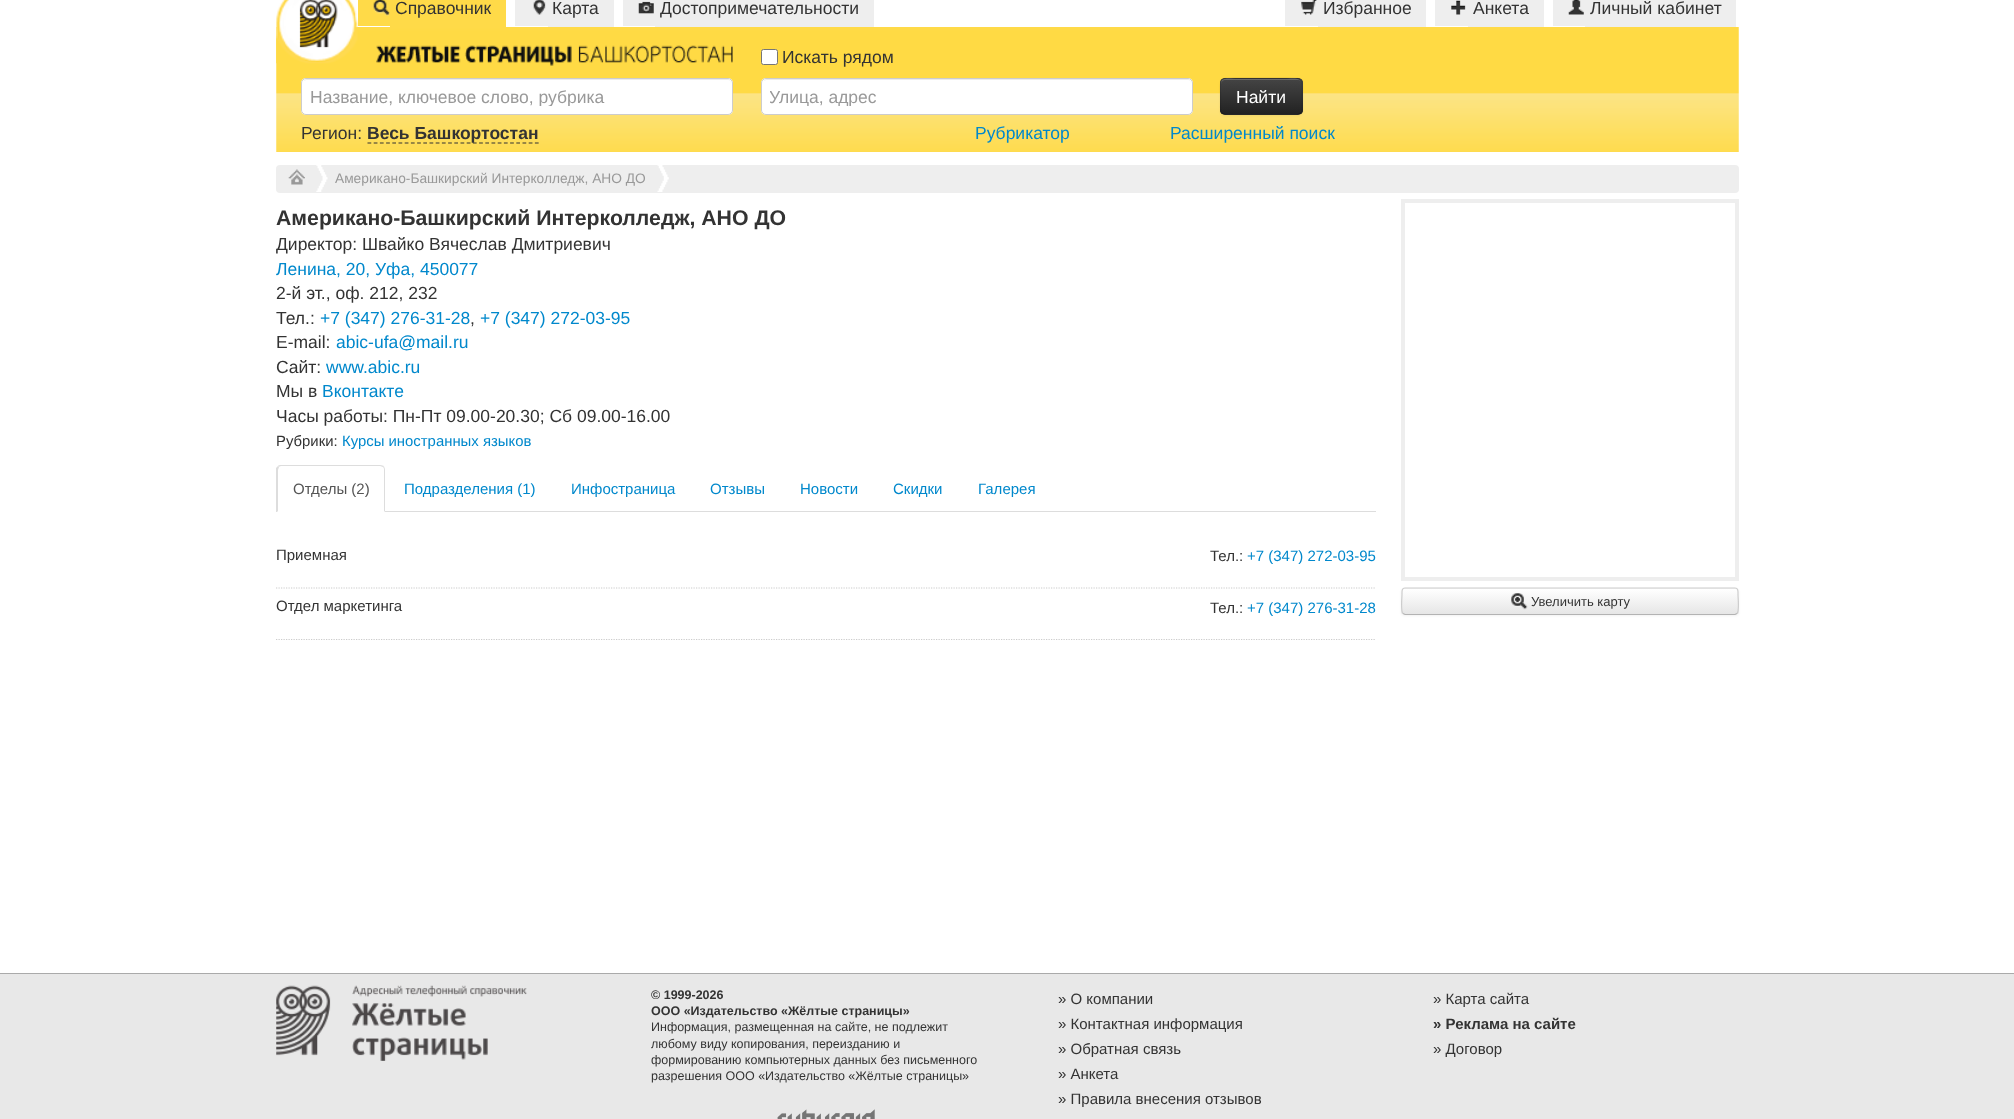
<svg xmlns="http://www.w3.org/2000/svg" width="2014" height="1119">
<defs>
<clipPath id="clip1"><rect x="310" y="86" width="390" height="20"/></clipPath>
<clipPath id="clip2"><rect x="770" y="86" width="390" height="20"/></clipPath>
<clipPath id="clip3"><rect x="1220" y="78" width="83" height="37" rx="5"/></clipPath>
<linearGradient id="g1" gradientUnits="userSpaceOnUse" x1="1261" y1="79" x2="1261" y2="114"><stop offset="0" stop-color="#444"/><stop offset="1" stop-color="#222"/></linearGradient>
<clipPath id="clip4"><rect x="276" y="538" width="1100" height="102"/></clipPath>
<clipPath id="clip5"><rect x="1401" y="588" width="338" height="27" rx="4"/></clipPath>
<linearGradient id="g2" gradientUnits="userSpaceOnUse" x1="1570" y1="589" x2="1570" y2="614"><stop offset="0" stop-color="#fff"/><stop offset="1" stop-color="#e6e6e6"/></linearGradient>
</defs>
<rect width="100%" height="100%" fill="#fff"/>
<rect x="358" width="32" height="26" fill="#ffda48"/>
<rect x="390" width="116" height="27" fill="#ffda48"/>
<image x="373" y="0" width="17" height="16" href="media/1.png"/>
<text x="395" y="14" style="font-family:Liberation Sans;font-size:17.5px;fill:#333">Справочник</text>
<rect x="515" width="33" height="26" fill="#eee"/>
<rect x="548" width="66" height="27" fill="#eee"/>
<image x="533" y="0" width="13" height="15" href="media/2.png"/>
<text x="552" y="14" style="font-family:Liberation Sans;font-size:17.5px;fill:#333">Карта</text>
<rect x="623" width="32" height="26" fill="#eee"/>
<rect x="655" width="219" height="27" fill="#eee"/>
<image x="638" y="1" width="16" height="13" href="media/3.png"/>
<text x="660" y="14" style="font-family:Liberation Sans;font-size:17.5px;fill:#333">Достопримечательности</text>
<rect x="1285" width="33" height="26" fill="#eee"/>
<rect x="1318" width="108" height="27" fill="#eee"/>
<image x="1301" y="0" width="16" height="15" href="media/4.png"/>
<text x="1323" y="14" style="font-family:Liberation Sans;font-size:17.5px;fill:#333">Избранное</text>
<rect x="1435" width="33" height="26" fill="#eee"/>
<rect x="1468" width="76" height="27" fill="#eee"/>
<image x="1451" y="0" width="15" height="15" href="media/5.png"/>
<text x="1473" y="14" style="font-family:Liberation Sans;font-size:17.5px;fill:#333">Анкета</text>
<rect x="1553" width="32" height="26" fill="#eee"/>
<rect x="1585" width="151" height="27" fill="#eee"/>
<image x="1568" y="0" width="16" height="15" href="media/6.png"/>
<text x="1590" y="14" style="font-family:Liberation Sans;font-size:17.5px;fill:#333">Личный кабинет</text>
<image x="276" y="27" width="1463" height="125" href="media/7.png"/>
<image x="276" y="0" width="82" height="64" href="media/8.png"/>
<image x="376" y="45" width="357" height="21" href="media/9.png"/>
<rect x="761.5" y="49.5" width="16" height="15" rx="2" fill="#fff" stroke="#767676"/>
<text x="782" y="63" style="font-family:Liberation Sans;font-size:17.5px;fill:#333">Искать рядом</text>
<rect x="301" y="78" width="432" height="37" rx="5" fill="#fff"/>
<path d="M306 80h422c2 0 3 2 3 4v-1c0-2-2-4-4-4h-420c-1 0-3 1-3 2z" fill="#ececec"/>
<rect x="301.5" y="78.5" width="431" height="36" rx="4.5" fill="none" stroke="#ccc"/>
<g clip-path="url(#clip1)">
<text x="310" y="103" style="font-family:Liberation Sans;font-size:17.5px;fill:#999">Название, ключевое слово, рубрика</text>
</g>
<rect x="761" y="78" width="432" height="37" rx="5" fill="#fff"/>
<path d="M766 80h422c2 0 3 2 3 4v-1c0-2-2-4-4-4h-420c-1 0-3 1-3 2z" fill="#ececec"/>
<rect x="761.5" y="78.5" width="431" height="36" rx="4.5" fill="none" stroke="#ccc"/>
<g clip-path="url(#clip2)">
<text x="769" y="103" style="font-family:Liberation Sans;font-size:17.5px;fill:#999">Улица, адрес</text>
</g>
<rect x="1220" y="79" width="83" height="37" rx="5" fill="#0000000d" filter="blur(1px)"/>
<rect x="1220" y="78" width="83" height="37" rx="5" fill="#363636"/>
<g clip-path="url(#clip3)">
<rect x="1220" y="79" width="83" height="35" fill="url(#g1)"/>
</g>
<path d="M1225 80h73c2 0 3 2 3 4c0-8-11-5-16-5h-48c-5 0-16-3-16 5c0-2 2-4 4-4z" fill="#ffffff33"/>
<path d="M1300.5 113l-2.5 1.5h-73.5l-2.5-1.5" fill="none" stroke="#00000040" stroke-width="1.2"/>
<path d="M1222 113c-2-2-1.5-5-1.5-7.5v-9.5c0-19.5-3-18 16.5-18h48.5c19.5 0 16.5-1.5 16.5 18v9.5c0 2.5 .5 5.5-1.5 7.5" fill="none" stroke="#0000001a" stroke-width="1.2"/>
<text x="1236" y="103" style="font-family:Liberation Sans;font-size:17.5px;fill:#fff">Найти</text>
<text x="301" y="139" style="font-family:Liberation Sans;font-size:17.5px;fill:#333">Регион:</text>
<path d="M367.5 143h171.5" fill="none" stroke="#333" stroke-width="1.2" stroke-dasharray="3.75 2.45"/>
<text x="367" y="139" style="font-family:Liberation Sans;font-size:17.5px;font-weight:bold;fill:#333">Весь Башкортостан</text>
<text x="975" y="139" style="font-family:Liberation Sans;font-size:17.5px;fill:#08c">Рубрикатор</text>
<text x="1170" y="139" style="font-family:Liberation Sans;font-size:17.5px;fill:#08c">Расширенный поиск</text>
<rect x="276" y="165" width="1463" height="28" rx="4" fill="#eee"/>
<image x="288" y="169" width="17" height="16" href="media/10.png"/>
<image x="316" y="165" width="12" height="27" href="media/11.png"/>
<text x="335" y="183" style="font-family:Liberation Sans;font-size:13.75px;fill:#999">Американо-Башкирский Интерколледж, АНО ДО</text>
<image x="657" y="165" width="12" height="27" href="media/12.png"/>
<text x="276" y="225" style="font-family:Liberation Sans;font-size:21.25px;font-weight:bold;fill:#333">Американо-Башкирский Интерколледж, АНО ДО</text>
<text x="276" y="250" style="font-family:Liberation Sans;font-size:17.5px;fill:#333">Директор: Швайко Вячеслав Дмитриевич</text>
<text x="276" y="275" style="font-family:Liberation Sans;font-size:17.5px;fill:#08c">Ленина, 20, Уфа, 450077</text>
<text x="276" y="299" style="font-family:Liberation Sans;font-size:17.5px;fill:#333">2-й эт., оф. 212, 232</text>
<text x="276" y="324" style="font-family:Liberation Sans;font-size:17.5px;fill:#333">Тел.:</text>
<text x="320" y="324" style="font-family:Liberation Sans;font-size:17.5px;fill:#08c">+7 (347) 276-31-28</text>
<text x="470" y="324" style="font-family:Liberation Sans;font-size:17.5px;fill:#333">,</text>
<text x="480" y="324" style="font-family:Liberation Sans;font-size:17.5px;fill:#08c">+7 (347) 272-03-95</text>
<text x="276" y="348" style="font-family:Liberation Sans;font-size:17.5px;fill:#333">E-mail:</text>
<text x="336" y="348" style="font-family:Liberation Sans;font-size:17.5px;fill:#08c">abic-ufa@mail.ru</text>
<text x="276" y="373" style="font-family:Liberation Sans;font-size:17.5px;fill:#333">Сайт:</text>
<text x="326" y="373" style="font-family:Liberation Sans;font-size:17.5px;fill:#08c">www.abic.ru</text>
<text x="276" y="397" style="font-family:Liberation Sans;font-size:17.5px;fill:#333">Мы в</text>
<text x="322" y="397" style="font-family:Liberation Sans;font-size:17.5px;fill:#08c">Вконтакте</text>
<text x="276" y="422" style="font-family:Liberation Sans;font-size:17.5px;fill:#333">Часы работы: Пн-Пт 09.00-20.30; Сб 09.00-16.00</text>
<text x="276" y="446" style="font-family:Liberation Sans;font-size:14.9px;fill:#333">Рубрики:</text>
<text x="342" y="446" style="font-family:Liberation Sans;font-size:14.9px;fill:#08c">Курсы иностранных языков</text>
<rect x="385" y="511" width="991" height="1" fill="#ddd"/>
<path d="M281 465c-1 0-3 0-3 1l1 1c0 0 1-1 2-1h99l3 1l1-1c-1 0-2-1-4-1z" fill="#ddd"/>
<path d="M385 512v-42c0-2-1-3-1-4l-1 1c1 1 1 2 1 3v41z" fill="#ddd"/>
<path d="M276 468l2-2l1 1l-1 3v41l-1 1h-1z" fill="#ddd"/>
<text x="293" y="494" style="font-family:Liberation Sans;font-size:15px;fill:#555">Отделы (2)</text>
<text x="404" y="494" style="font-family:Liberation Sans;font-size:15px;fill:#08c">Подразделения (1)</text>
<text x="571" y="494" style="font-family:Liberation Sans;font-size:15px;fill:#08c">Инфостраница</text>
<text x="710" y="494" style="font-family:Liberation Sans;font-size:15px;fill:#08c">Отзывы</text>
<text x="800" y="494" style="font-family:Liberation Sans;font-size:15px;fill:#08c">Новости</text>
<text x="893" y="494" style="font-family:Liberation Sans;font-size:15px;fill:#08c">Скидки</text>
<text x="978" y="494" style="font-family:Liberation Sans;font-size:15px;fill:#08c">Галерея</text>
<path d="M276 588h1100" fill="none" stroke="#ccc" stroke-width="1.2" stroke-dasharray="1.25 1.25"/>
<text x="276" y="560" style="font-family:Liberation Sans;font-size:15px;fill:#333">Приемная</text>
<text x="1210" y="561" style="font-family:Liberation Sans;font-size:15px;fill:#333">Тел.:</text>
<text x="1247" y="561" style="font-family:Liberation Sans;font-size:15px;fill:#08c">+7 (347) 272-03-95</text>
<g clip-path="url(#clip4)">
<path d="M276 639.5h1100" fill="none" stroke="#ccc" stroke-width="1.2" stroke-dasharray="1.25 1.25"/>
</g>
<text x="276" y="611" style="font-family:Liberation Sans;font-size:15px;fill:#333">Отдел маркетинга</text>
<text x="1210" y="613" style="font-family:Liberation Sans;font-size:15px;fill:#333">Тел.:</text>
<text x="1247" y="613" style="font-family:Liberation Sans;font-size:15px;fill:#08c">+7 (347) 276-31-28</text>
<rect x="1403" y="201" width="334" height="378" fill="none" stroke="#eee" stroke-width="4"/>
<rect x="1401" y="589" width="338" height="27" rx="4" fill="#0000000d" filter="blur(1px)"/>
<rect x="1401" y="588" width="338" height="27" rx="4" fill="#f5f5f5"/>
<g clip-path="url(#clip5)">
<rect x="1401" y="589" width="338" height="25" fill="url(#g2)"/>
</g>
<path d="M1737 613.5l-2 1h-330l-2-1" fill="none" stroke="#b3b3b3" stroke-width="1.2"/>
<path d="M1403 613.5c-2.5-2-1-15.5-1-19c0-2.5-.5-6.5 3-6.5h330c3.5 0 3 4 3 6.5c0 3.5 1.5 17-1 19" fill="none" stroke="#ccc" stroke-width="1.2"/>
<image x="1511" y="593" width="17" height="17" href="media/13.png"/>
<text x="1531" y="606" style="font-family:Liberation Sans;font-size:13px;fill:#333">Увеличить карту</text>
<rect y="974" width="2014" height="145" fill="#e8e8e8"/>
<rect y="973" width="2014" height="1" fill="#aaa"/>
<image x="276" y="985" width="251" height="76" href="media/14.png"/>
<text x="651" y="999" style="font-family:Liberation Sans;font-size:12.5px;font-weight:bold;fill:#333">© 1999-2026</text>
<text x="651" y="1015" style="font-family:Liberation Sans;font-size:12.5px;font-weight:bold;fill:#333">ООО «Издательство «Жёлтые страницы»</text>
<text x="651" y="1031" style="font-family:Liberation Sans;font-size:12.5px;fill:#333">Информация, размещенная на сайте, не подлежит</text>
<text x="651" y="1048" style="font-family:Liberation Sans;font-size:12.5px;fill:#333">любому виду копирования, переизданию и</text>
<text x="651" y="1064" style="font-family:Liberation Sans;font-size:12.5px;fill:#333">формированию компьютерных данных без письменного</text>
<text x="651" y="1080" style="font-family:Liberation Sans;font-size:12.5px;fill:#333">разрешения ООО «Издательство «Жёлтые страницы»</text>
<image x="777" y="1109" width="98" height="10" href="media/15.png"/>
<text x="1058" y="1004" style="font-family:Liberation Sans;font-size:15px;fill:#333">» О компании</text>
<text x="1058" y="1029" style="font-family:Liberation Sans;font-size:15px;fill:#333">» Контактная информация</text>
<text x="1058" y="1054" style="font-family:Liberation Sans;font-size:15px;fill:#333">» Обратная связь</text>
<text x="1058" y="1079" style="font-family:Liberation Sans;font-size:15px;fill:#333">» Анкета</text>
<text x="1058" y="1104" style="font-family:Liberation Sans;font-size:15px;fill:#333">» Правила внесения отзывов</text>
<text x="1433" y="1004" style="font-family:Liberation Sans;font-size:15px;fill:#333">» Карта сайта</text>
<text x="1433" y="1029" style="font-family:Liberation Sans;font-size:15px;font-weight:bold;fill:#333">» Реклама на сайте</text>
<text x="1433" y="1054" style="font-family:Liberation Sans;font-size:15px;fill:#333">» Договор</text>
</svg>
